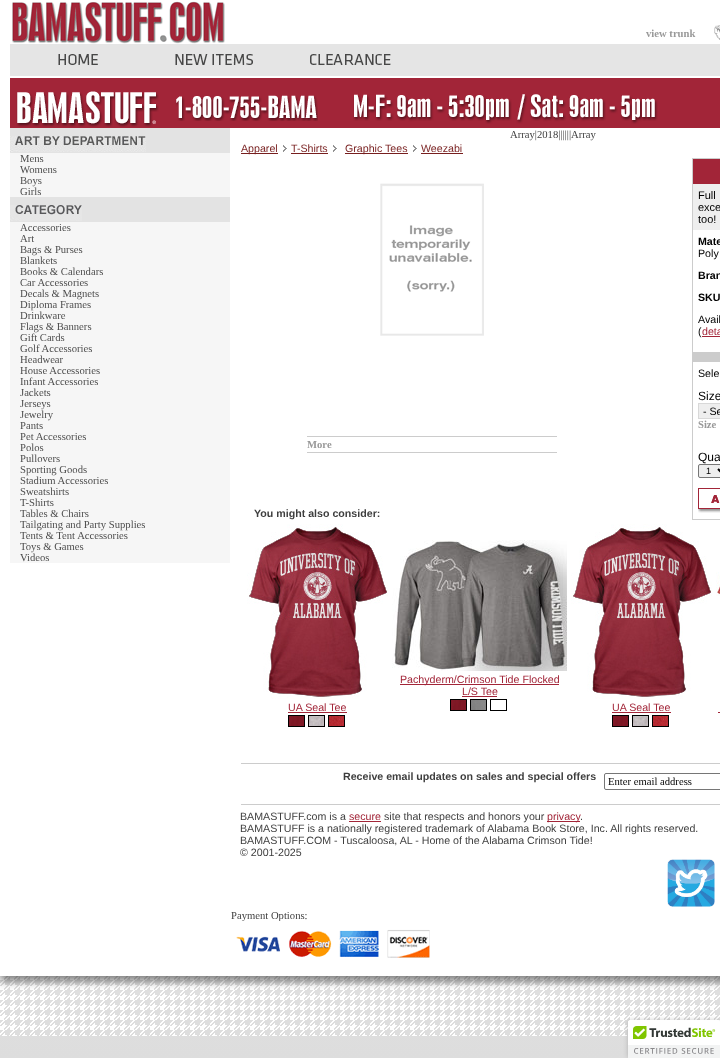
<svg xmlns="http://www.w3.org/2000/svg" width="720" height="1058">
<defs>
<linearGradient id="g1" gradientUnits="userSpaceOnUse" x1="360" y1="0" x2="360" y2="1058"><stop offset="0" stop-color="#fff"/><stop offset="1" stop-color="#ddd"/></linearGradient>
</defs>
<rect width="100%" height="100%" fill="#fff"/>
<rect y="976" width="720" height="82" fill="url(#g1)"/>
<image x="0" y="976" width="720" height="60" href="media/1.png"/>
<rect y="5" width="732" height="976" fill="#00000080" filter="blur(4px)"/>
<rect width="720" height="976" fill="#fff"/>
<image x="12" y="1" width="213" height="43" href="media/2.png"/>
<text x="646" y="37" style="font-family:Liberation Serif;font-size:10.65px;font-weight:bold;fill:#999">view trunk</text>
<image x="714" y="25" width="6" height="15" href="media/3.png"/>
<rect x="10" y="44" width="710" height="32" fill="#e5e5e5"/>
<image x="58" y="54" width="40" height="11" href="media/4.png"/>
<image x="175" y="54" width="78" height="11" href="media/5.png"/>
<image x="310" y="54" width="81" height="11" href="media/6.png"/>
<rect x="10" y="78" width="710" height="50" fill="#a22538"/>
<image x="16" y="91" width="143" height="36" href="media/7.png"/>
<image x="175" y="95" width="143" height="26" href="media/8.png"/>
<image x="353" y="94" width="305" height="30" href="media/9.png"/>
<rect x="10" y="128" width="220" height="94" fill="#e3e3e3"/>
<image x="10" y="136" width="136" height="16" href="media/10.png"/>
<rect x="10" y="153" width="220" height="44" fill="#f6f6f6"/>
<text x="20" y="162" style="font-family:Liberation Serif;font-size:10.65px;fill:#4d4d4d">Mens</text>
<text x="20" y="173" style="font-family:Liberation Serif;font-size:10.65px;fill:#4d4d4d">Womens</text>
<text x="20" y="184" style="font-family:Liberation Serif;font-size:10.65px;fill:#4d4d4d">Boys</text>
<text x="20" y="195" style="font-family:Liberation Serif;font-size:10.65px;fill:#4d4d4d">Girls</text>
<image x="10" y="205" width="72" height="16" href="media/11.png"/>
<rect x="10" y="222" width="220" height="341" fill="#f6f6f6"/>
<text x="20" y="231" style="font-family:Liberation Serif;font-size:10.65px;fill:#4d4d4d">Accessories</text>
<text x="20" y="242" style="font-family:Liberation Serif;font-size:10.65px;fill:#4d4d4d">Art</text>
<text x="20" y="253" style="font-family:Liberation Serif;font-size:10.65px;fill:#4d4d4d">Bags &amp; Purses</text>
<text x="20" y="264" style="font-family:Liberation Serif;font-size:10.65px;fill:#4d4d4d">Blankets</text>
<text x="20" y="275" style="font-family:Liberation Serif;font-size:10.65px;fill:#4d4d4d">Books &amp; Calendars</text>
<text x="20" y="286" style="font-family:Liberation Serif;font-size:10.65px;fill:#4d4d4d">Car Accessories</text>
<text x="20" y="297" style="font-family:Liberation Serif;font-size:10.65px;fill:#4d4d4d">Decals &amp; Magnets</text>
<text x="20" y="308" style="font-family:Liberation Serif;font-size:10.65px;fill:#4d4d4d">Diploma Frames</text>
<text x="20" y="319" style="font-family:Liberation Serif;font-size:10.65px;fill:#4d4d4d">Drinkware</text>
<text x="20" y="330" style="font-family:Liberation Serif;font-size:10.65px;fill:#4d4d4d">Flags &amp; Banners</text>
<text x="20" y="341" style="font-family:Liberation Serif;font-size:10.65px;fill:#4d4d4d">Gift Cards</text>
<text x="20" y="352" style="font-family:Liberation Serif;font-size:10.65px;fill:#4d4d4d">Golf Accessories</text>
<text x="20" y="363" style="font-family:Liberation Serif;font-size:10.65px;fill:#4d4d4d">Headwear</text>
<text x="20" y="374" style="font-family:Liberation Serif;font-size:10.65px;fill:#4d4d4d">House Accessories</text>
<text x="20" y="385" style="font-family:Liberation Serif;font-size:10.65px;fill:#4d4d4d">Infant Accessories</text>
<text x="20" y="396" style="font-family:Liberation Serif;font-size:10.65px;fill:#4d4d4d">Jackets</text>
<text x="20" y="407" style="font-family:Liberation Serif;font-size:10.65px;fill:#4d4d4d">Jerseys</text>
<text x="20" y="418" style="font-family:Liberation Serif;font-size:10.65px;fill:#4d4d4d">Jewelry</text>
<text x="20" y="429" style="font-family:Liberation Serif;font-size:10.65px;fill:#4d4d4d">Pants</text>
<text x="20" y="440" style="font-family:Liberation Serif;font-size:10.65px;fill:#4d4d4d">Pet Accessories</text>
<text x="20" y="451" style="font-family:Liberation Serif;font-size:10.65px;fill:#4d4d4d">Polos</text>
<text x="20" y="462" style="font-family:Liberation Serif;font-size:10.65px;fill:#4d4d4d">Pullovers</text>
<text x="20" y="473" style="font-family:Liberation Serif;font-size:10.65px;fill:#4d4d4d">Sporting Goods</text>
<text x="20" y="484" style="font-family:Liberation Serif;font-size:10.65px;fill:#4d4d4d">Stadium Accessories</text>
<text x="20" y="495" style="font-family:Liberation Serif;font-size:10.65px;fill:#4d4d4d">Sweatshirts</text>
<text x="20" y="506" style="font-family:Liberation Serif;font-size:10.65px;fill:#4d4d4d">T-Shirts</text>
<text x="20" y="517" style="font-family:Liberation Serif;font-size:10.65px;fill:#4d4d4d">Tables &amp; Chairs</text>
<text x="20" y="528" style="font-family:Liberation Serif;font-size:10.65px;fill:#4d4d4d">Tailgating and Party Supplies</text>
<text x="20" y="539" style="font-family:Liberation Serif;font-size:10.65px;fill:#4d4d4d">Tents &amp; Tent Accessories</text>
<text x="20" y="550" style="font-family:Liberation Serif;font-size:10.65px;fill:#4d4d4d">Toys &amp; Games</text>
<text x="20" y="561" style="font-family:Liberation Serif;font-size:10.65px;fill:#4d4d4d">Videos</text>
<text x="510" y="138" style="font-family:Liberation Serif;font-size:10.65px;fill:#3e3e3e">Array|2018||||||Array</text>
<rect x="241" y="153" width="37" height="1" fill="#771e1e"/>
<text x="241" y="152" style="font-family:Liberation Sans;font-size:10.65px;fill:#771e1e">Apparel</text>
<image x="283" y="145" width="4" height="7" href="media/12.png"/>
<text x="291" y="152" style="font-family:Liberation Sans;font-size:10.65px;fill:#771e1e">T-Shirts</text>
<rect x="291" y="153" width="37" height="1" fill="#771e1e"/>
<image x="333" y="145" width="4" height="7" href="media/12.png"/>
<rect x="345" y="153" width="63" height="1" fill="#771e1e"/>
<text x="345" y="152" style="font-family:Liberation Sans;font-size:10.65px;fill:#771e1e">Graphic Tees</text>
<image x="413" y="145" width="4" height="7" href="media/12.png"/>
<text x="421" y="152" style="font-family:Liberation Sans;font-size:10.65px;fill:#771e1e">Weezabi</text>
<rect x="421" y="153" width="42" height="1" fill="#771e1e"/>
<image x="380" y="183" width="104" height="153" href="media/13.png"/>
<rect x="307" y="436" width="250" height="1" fill="#ccc"/>
<text x="307" y="448" style="font-family:Liberation Serif;font-size:10.65px;font-weight:bold;fill:#999">More</text>
<rect x="307" y="452" width="250" height="1" fill="#ccc"/>
<rect x="692" y="158" width="28" height="1" fill="#ccc"/>
<rect x="692" y="159" width="1" height="360" fill="#ccc"/>
<rect x="693" y="159" width="27" height="25" fill="#a22538"/>
<rect x="693" y="184" width="27" height="46" fill="#eee"/>
<text x="698" y="199" style="font-family:Liberation Sans;font-size:11px;fill:#000">Full</text>
<text x="698" y="211" style="font-family:Liberation Sans;font-size:11px;fill:#000">exce</text>
<text x="698" y="223" style="font-family:Liberation Sans;font-size:11px;fill:#000">too!</text>
<text x="698" y="245" style="font-family:Liberation Sans;font-size:10.65px;font-weight:bold;fill:#000">Mate</text>
<text x="698" y="257" style="font-family:Liberation Sans;font-size:10.65px;fill:#000">Poly</text>
<text x="698" y="279" style="font-family:Liberation Sans;font-size:10.65px;font-weight:bold;fill:#000">Bran</text>
<text x="698" y="301" style="font-family:Liberation Sans;font-size:10.65px;font-weight:bold;fill:#000">SKU</text>
<text x="698" y="323" style="font-family:Liberation Sans;font-size:10.65px;fill:#000">Avail</text>
<text x="698" y="335" style="font-family:Liberation Sans;font-size:10.65px;fill:#000">(</text>
<text x="702" y="335" style="font-family:Liberation Sans;font-size:10.65px;fill:#a22538">deta</text>
<rect x="702" y="336" width="18" height="1" fill="#a22538"/>
<rect x="693" y="352" width="27" height="10" fill="#ccc"/>
<text x="698" y="377" style="font-family:Liberation Sans;font-size:10.65px;fill:#000">Sele</text>
<text x="698" y="400" style="font-family:Liberation Sans;font-size:12px;fill:#000">Size</text>
<rect x="698.5" y="403.5" width="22" height="15" fill="#eee" stroke="#d8d8d8"/>
<text x="703" y="415" style="font-family:Liberation Sans;font-size:10.65px;fill:#000">- Se</text>
<text x="698" y="428" style="font-family:Liberation Serif;font-size:10.65px;font-weight:bold;fill:#999">Size</text>
<text x="698" y="461" style="font-family:Liberation Sans;font-size:12px;fill:#000">Qua</text>
<rect x="698.5" y="464.5" width="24" height="13" rx="1.5" fill="#eee" stroke="#767676"/>
<path d="M718 469l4 4l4-4" fill="none" stroke="#000" stroke-width="2"/>
<text x="706" y="474" style="font-family:Liberation Sans;font-size:9px;fill:#000">1</text>
<image x="698" y="488" width="22" height="25" href="media/14.png"/>
<rect x="692" y="519" width="28" height="1" fill="#ccc"/>
<text x="254" y="517" style="font-family:Liberation Sans;font-size:10.65px;font-weight:bold;fill:#3e3e3e">You might also consider:</text>
<image x="392" y="540" width="175" height="131" href="media/15.png"/>
<rect x="400" y="684" width="159" height="1" fill="#a22538"/>
<text x="400" y="683" style="font-family:Liberation Sans;font-size:10.65px;fill:#a22538">Pachyderm/Crimson Tide Flocked</text>
<text x="462" y="695" style="font-family:Liberation Sans;font-size:10.65px;fill:#a22538">L/S Tee</text>
<rect x="462" y="696" width="35" height="1" fill="#a22538"/>
<rect x="450" y="699" width="17" height="1" fill="#000"/>
<rect x="450" y="700" width="1" height="10" fill="#000"/>
<image x="451" y="700" width="15" height="10" href="media/16.png"/>
<rect x="466" y="700" width="1" height="10" fill="#000"/>
<rect x="450" y="710" width="17" height="1" fill="#000"/>
<rect x="470" y="699" width="17" height="1" fill="#000"/>
<rect x="470" y="700" width="1" height="10" fill="#000"/>
<image x="471" y="700" width="15" height="10" href="media/17.png"/>
<rect x="486" y="700" width="1" height="10" fill="#000"/>
<rect x="470" y="710" width="17" height="1" fill="#000"/>
<rect x="490" y="699" width="17" height="1" fill="#000"/>
<rect x="490" y="700" width="1" height="10" fill="#000"/>
<rect x="506" y="700" width="1" height="10" fill="#000"/>
<rect x="490" y="710" width="17" height="1" fill="#000"/>
<image x="716" y="572" width="4" height="24" href="media/18.png"/>
<rect x="718" y="712" width="2" height="1" fill="#a22538"/>
<image x="247" y="524" width="141" height="175" href="media/19.png"/>
<text x="288" y="711" style="font-family:Liberation Sans;font-size:10.65px;fill:#a22538">UA Seal Tee</text>
<rect x="288" y="712" width="59" height="1" fill="#a22538"/>
<rect x="288" y="715" width="17" height="1" fill="#000"/>
<rect x="288" y="716" width="1" height="10" fill="#000"/>
<image x="289" y="716" width="15" height="10" href="media/20.png"/>
<rect x="304" y="716" width="1" height="10" fill="#000"/>
<rect x="288" y="726" width="17" height="1" fill="#000"/>
<rect x="308" y="715" width="17" height="1" fill="#000"/>
<rect x="308" y="716" width="1" height="10" fill="#000"/>
<image x="309" y="716" width="15" height="10" href="media/21.png"/>
<rect x="324" y="716" width="1" height="10" fill="#000"/>
<rect x="308" y="726" width="17" height="1" fill="#000"/>
<rect x="328" y="715" width="17" height="1" fill="#000"/>
<rect x="328" y="716" width="1" height="10" fill="#000"/>
<image x="329" y="716" width="15" height="10" href="media/22.png"/>
<rect x="344" y="716" width="1" height="10" fill="#000"/>
<rect x="328" y="726" width="17" height="1" fill="#000"/>
<image x="571" y="524" width="141" height="175" href="media/19.png"/>
<text x="612" y="711" style="font-family:Liberation Sans;font-size:10.65px;fill:#a22538">UA Seal Tee</text>
<rect x="612" y="712" width="59" height="1" fill="#a22538"/>
<rect x="612" y="715" width="17" height="1" fill="#000"/>
<rect x="612" y="716" width="1" height="10" fill="#000"/>
<image x="613" y="716" width="15" height="10" href="media/20.png"/>
<rect x="628" y="716" width="1" height="10" fill="#000"/>
<rect x="612" y="726" width="17" height="1" fill="#000"/>
<rect x="632" y="715" width="17" height="1" fill="#000"/>
<rect x="632" y="716" width="1" height="10" fill="#000"/>
<image x="633" y="716" width="15" height="10" href="media/23.png"/>
<rect x="648" y="716" width="1" height="10" fill="#000"/>
<rect x="632" y="726" width="17" height="1" fill="#000"/>
<rect x="652" y="715" width="17" height="1" fill="#000"/>
<rect x="652" y="716" width="1" height="10" fill="#000"/>
<image x="653" y="716" width="15" height="10" href="media/24.png"/>
<rect x="668" y="716" width="1" height="10" fill="#000"/>
<rect x="652" y="726" width="17" height="1" fill="#000"/>
<rect x="241" y="763" width="479" height="1" fill="#ccc"/>
<text x="343" y="780" style="font-family:Liberation Sans;font-size:10.65px;font-weight:bold;fill:#3e3e3e">Receive email updates on sales and special offers</text>
<rect x="604.5" y="773.5" width="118" height="16" rx="1.5" fill="none" stroke="#767676"/>
<text x="608" y="785" style="font-family:Liberation Serif;font-size:10.65px;fill:#000">Enter email address</text>
<rect x="241" y="804" width="479" height="1" fill="#ccc"/>
<text x="240" y="820" style="font-family:Liberation Sans;font-size:10.65px;fill:#3e3e3e">BAMASTUFF.com is a</text>
<text x="349" y="820" style="font-family:Liberation Sans;font-size:10.65px;fill:#a22538">secure</text>
<rect x="349" y="821" width="32" height="1" fill="#a22538"/>
<text x="384" y="820" style="font-family:Liberation Sans;font-size:10.65px;fill:#3e3e3e">site that respects and honors your</text>
<rect x="547" y="821" width="33" height="1" fill="#a22538"/>
<text x="547" y="820" style="font-family:Liberation Sans;font-size:10.65px;fill:#a22538">privacy</text>
<text x="580" y="820" style="font-family:Liberation Sans;font-size:10.65px;fill:#3e3e3e">.</text>
<text x="240" y="832" style="font-family:Liberation Sans;font-size:10.65px;fill:#3e3e3e">BAMASTUFF is a nationally registered trademark of Alabama Book Store, Inc. All rights reserved.</text>
<text x="240" y="844" style="font-family:Liberation Sans;font-size:10.65px;fill:#3e3e3e">BAMASTUFF.COM - Tuscaloosa, AL - Home of the Alabama Crimson Tide!</text>
<text x="240" y="856" style="font-family:Liberation Sans;font-size:10.65px;fill:#3e3e3e">© 2001-2025</text>
<image x="667" y="859" width="48" height="48" href="media/25.png"/>
<text x="231" y="919" style="font-family:Liberation Serif;font-size:10.65px;fill:#3e3e3e">Payment Options:</text>
<image x="236" y="921" width="194" height="37" href="media/26.png"/>
<rect x="628" y="1020" width="92" height="38" rx="2" fill="#00000033" filter="blur(2.5px)"/>
<path d="M630 1020h90v38h-92v-36c0-1 1-2 2-2z" fill="#fff"/>
<image x="628" y="1020" width="92" height="38" href="media/27.png"/>
</svg>
